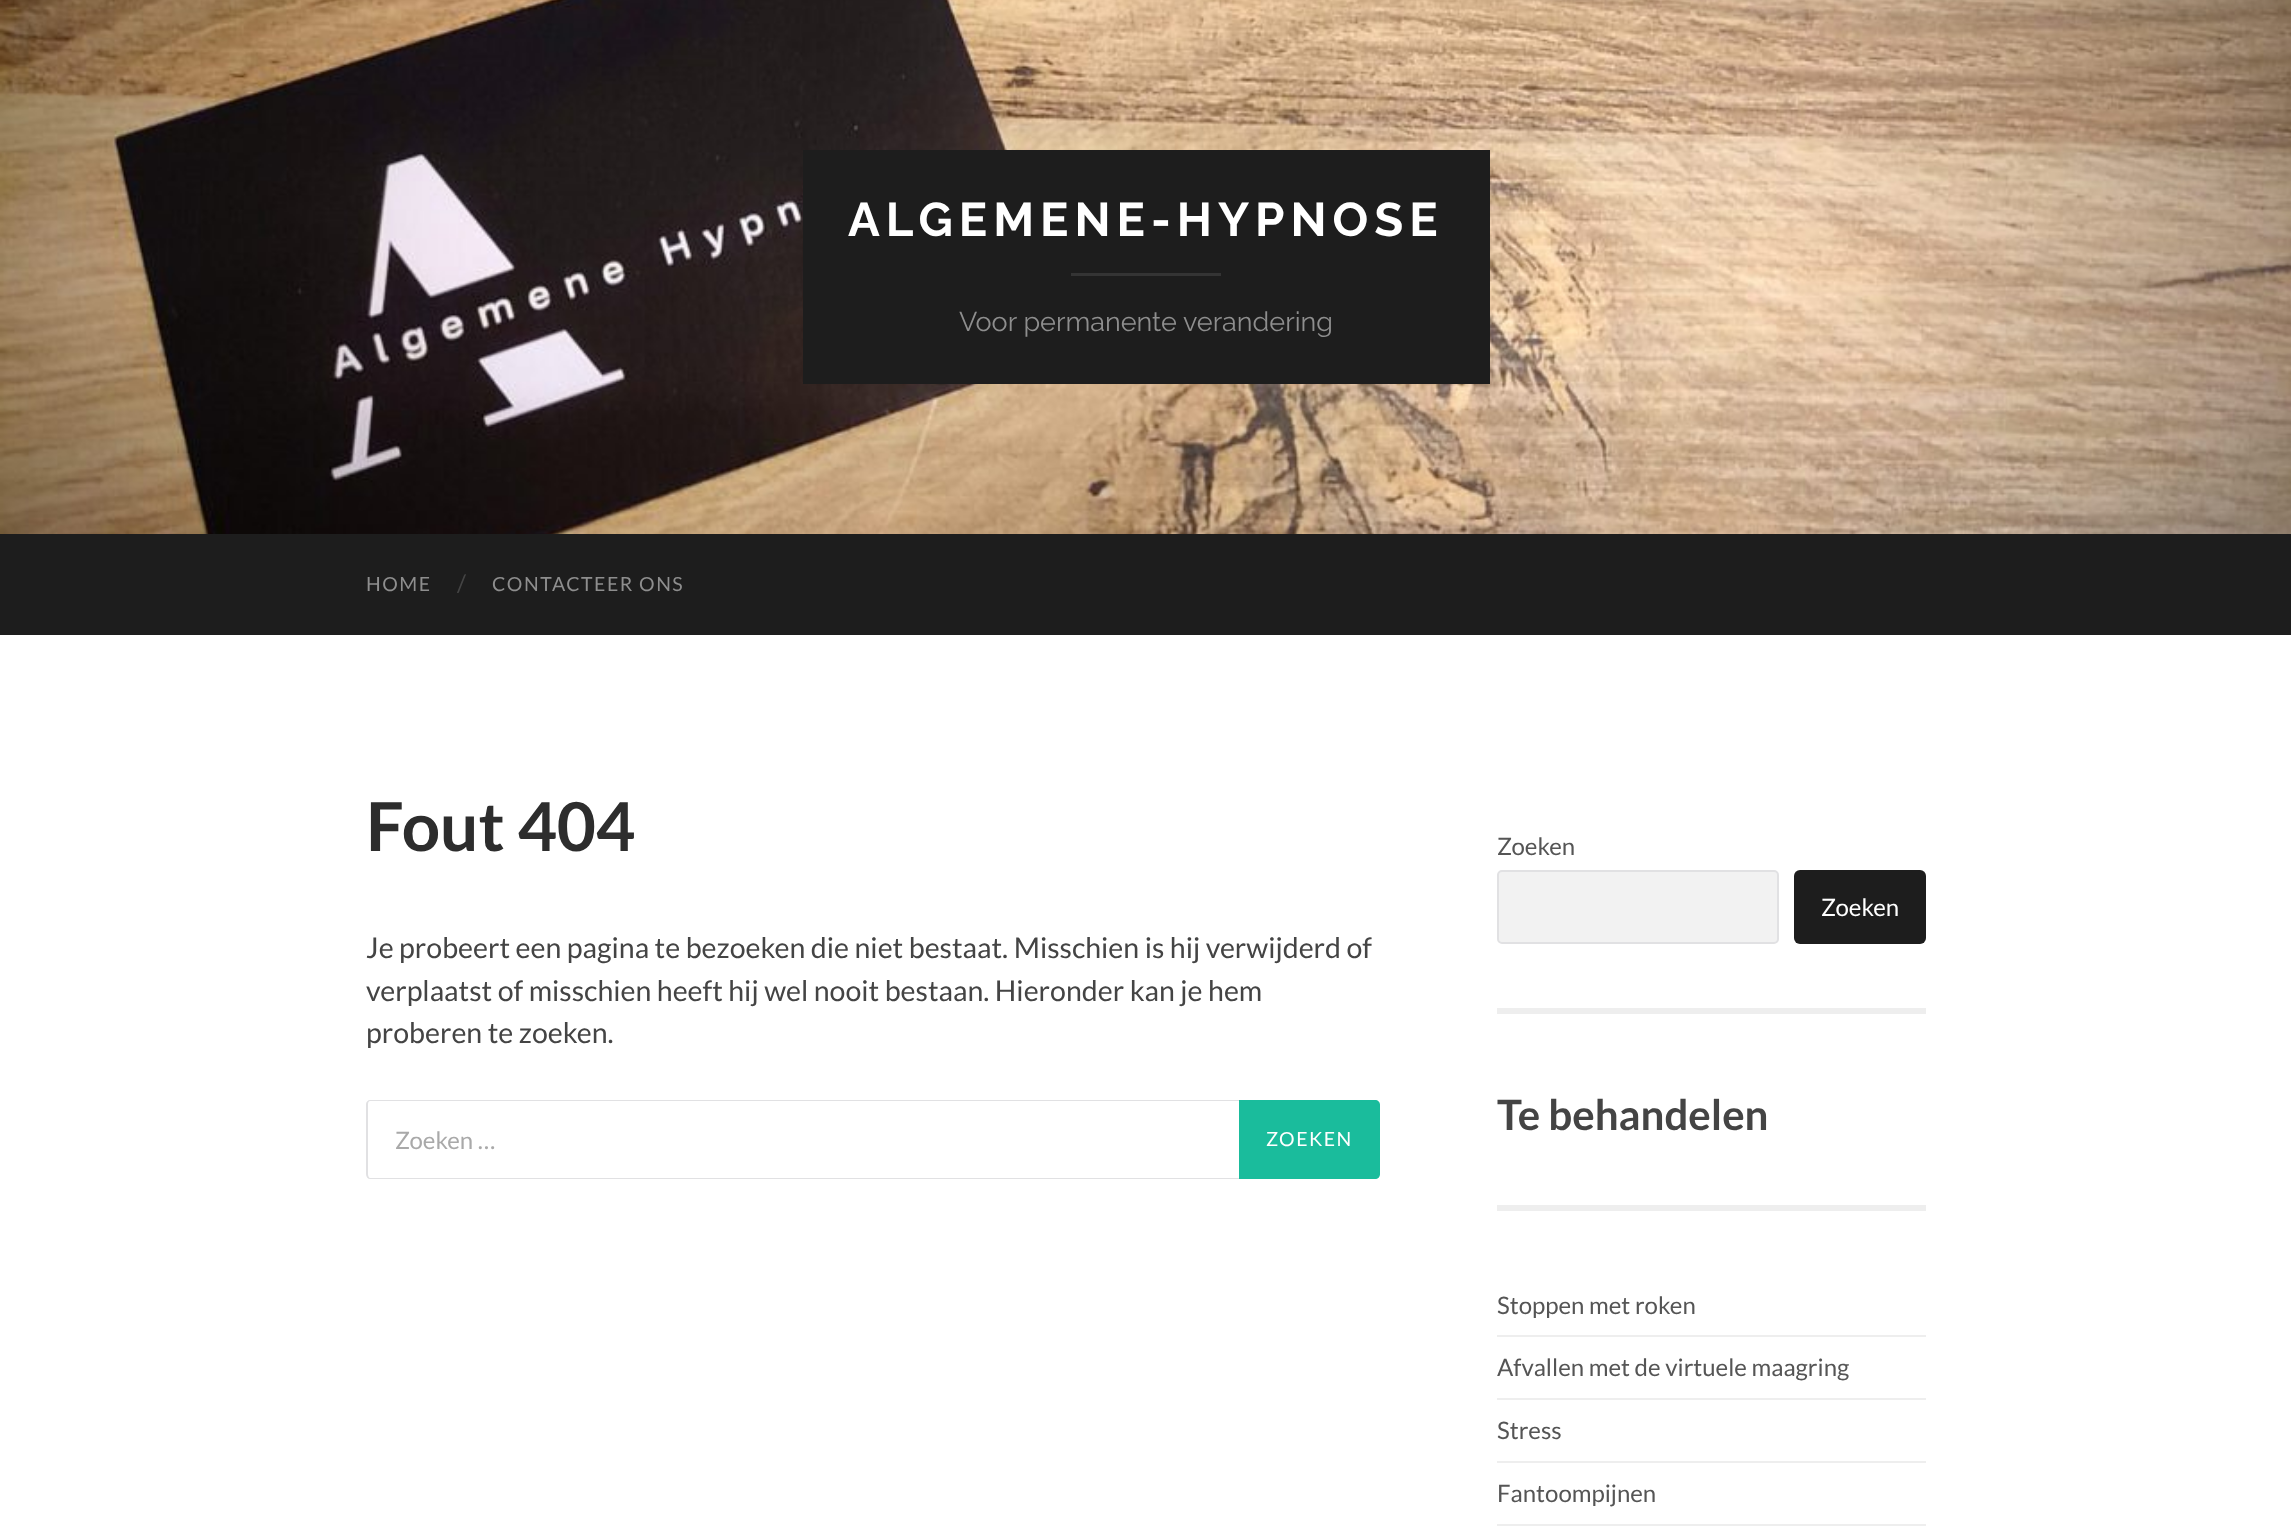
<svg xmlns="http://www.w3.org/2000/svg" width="2291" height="1528">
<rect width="100%" height="100%" fill="#fff"/>
<image x="0" y="0" width="2291" height="534" href="media/1.png"/>
<rect x="803" y="150" width="687" height="234" fill="#1d1d1d"/>
<text x="848" y="236" style="font-family:Raleway;font-size:47.25px;font-weight:100;letter-spacing:6px;fill:#fff">ALGEMENE-HYPNOSE</text>
<rect x="1071" y="273" width="150" height="3" fill="#343434"/>
<text x="959" y="331" style="font-family:'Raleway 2';font-size:27px;font-weight:100;fill:#8e8e8e">Voor permanente verandering</text>
<rect y="534" width="2291" height="101" fill="#1d1d1d"/>
<text x="366" y="591" style="font-family:Lato;font-size:19.5px;letter-spacing:1.5px;fill:#8e8e8e">HOME</text>
<text x="457" y="592" style="font-family:Lato;font-size:24px;fill:#444">/</text>
<text x="492" y="591" style="font-family:Lato;font-size:19.5px;letter-spacing:1.5px;fill:#8e8e8e">CONTACTEER ONS</text>
<text x="366" y="851" style="font-family:Lato;font-size:67.5px;font-weight:bold;fill:#2d2d2d">Fout 404</text>
<text x="366" y="958" style="font-family:Lato;font-size:28.5px;fill:#444">Je probeert een pagina te bezoeken die niet bestaat. Misschien is hij verwijderd of</text>
<text x="366" y="1001" style="font-family:Lato;font-size:28.5px;fill:#444">verplaatst of misschien heeft hij wel nooit bestaan. Hieronder kan je hem</text>
<text x="366" y="1043" style="font-family:Lato;font-size:28.5px;fill:#444">proberen te zoeken.</text>
<path d="M370 1100h869v79h-869c-2 0-4-2-4-5v-70c0-2 2-4 4-4zm0 1h869v77h-869c-1 0-2-2-2-4v-70c0-2 1-3 2-3z" fill="#e1e1e3" fill-rule="evenodd"/>
<text x="395" y="1149" style="font-family:Lato;font-size:24px;fill:#a9a9a9">Zoeken …</text>
<path d="M1239 1100h136c3 0 5 2 5 5v69c0 3-2 5-5 5h-136z" fill="#1abc9c"/>
<text x="1266" y="1146" style="font-family:Lato;font-size:19.5px;letter-spacing:1.5px;fill:#fff">ZOEKEN</text>
<rect x="1497" y="1008" width="429" height="6" fill="#eee"/>
<text x="1497" y="855" style="font-family:Lato;font-size:24px;fill:#555">Zoeken</text>
<rect x="1498" y="871" width="280" height="72" rx="4" fill="#f2f2f2" stroke="#e1e1e3" stroke-width="2"/>
<rect x="1794" y="870" width="132" height="74" rx="6" fill="#1d1d1d"/>
<text x="1821" y="916" style="font-family:Lato;font-size:24px;fill:#fff">Zoeken</text>
<rect x="1497" y="1205" width="429" height="6" fill="#eee"/>
<text x="1497" y="1130" style="font-family:Lato;font-size:42px;font-weight:bold;fill:#444">Te behandelen</text>
<text x="1497" y="1314" style="font-family:Lato;font-size:24px;fill:#555">Stoppen met roken</text>
<rect x="1497" y="1335" width="429" height="2" fill="#eee"/>
<text x="1497" y="1376" style="font-family:Lato;font-size:24px;fill:#555">Afvallen met de virtuele maagring</text>
<rect x="1497" y="1398" width="429" height="2" fill="#eee"/>
<text x="1497" y="1439" style="font-family:Lato;font-size:24px;fill:#555">Stress</text>
<rect x="1497" y="1461" width="429" height="2" fill="#eee"/>
<text x="1497" y="1502" style="font-family:Lato;font-size:24px;fill:#555">Fantoompijnen</text>
<rect x="1497" y="1524" width="429" height="2" fill="#eee"/>
</svg>
